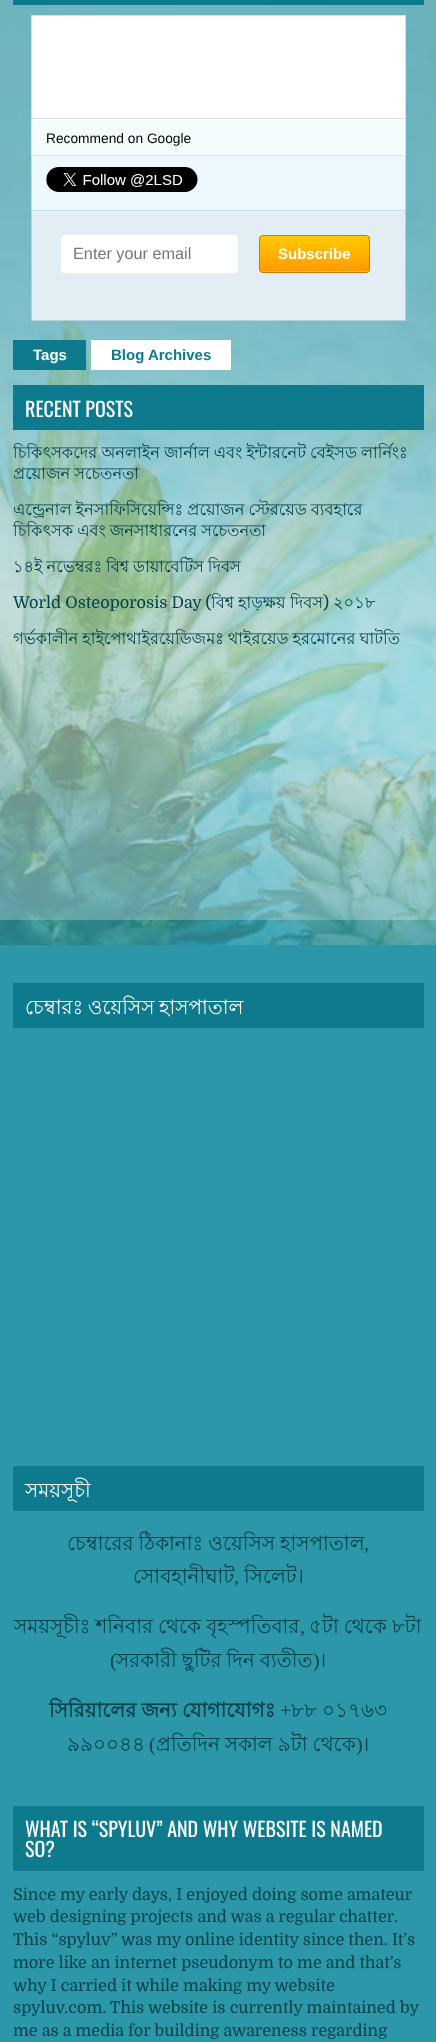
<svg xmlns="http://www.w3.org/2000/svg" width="436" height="2042">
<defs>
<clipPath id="clip1"><rect x="259" y="235" width="111" height="38" rx="4"/></clipPath>
<linearGradient id="g1" gradientUnits="userSpaceOnUse" x1="260" y1="236" x2="260" y2="271"><stop offset="0" stop-color="#ffca00"/><stop offset="1" stop-color="#ff9b00"/></linearGradient>
<linearGradient id="g2" gradientUnits="userSpaceOnUse" x1="260" y1="271" x2="260" y2="306"><stop offset="0" stop-color="#ffca00"/><stop offset="1" stop-color="#ff9b00"/></linearGradient>
</defs>
<rect width="100%" height="100%" fill="#fff"/>
<image x="0" y="0" width="436" height="945" href="media/1.png"/>
<rect width="436" height="920" fill="#ffffff40"/>
<rect x="13" width="411" height="5" fill="#0d7b8d"/>
<rect x="31.5" y="15.5" width="374" height="103" fill="#fff" stroke="#dcdcdc"/>
<rect x="32" y="120" width="373" height="35" fill="#f5fcfe"/>
<rect x="31" y="119" width="375" height="1" fill="#fff"/>
<rect x="405" y="119" width="1" height="37" fill="#d8e6eb"/>
<rect x="31" y="155" width="375" height="1" fill="#d8e6eb"/>
<rect x="31" y="119" width="1" height="37" fill="#d8e6eb"/>
<text x="46" y="143" style="font-family:Liberation Sans;font-size:13.75px;fill:#000">Recommend on Google</text>
<rect x="32" y="156" width="373" height="54" fill="#eef9fd"/>
<rect x="405" y="156" width="1" height="55" fill="#c7dbe2"/>
<rect x="31" y="210" width="375" height="1" fill="#c7dbe2"/>
<rect x="31" y="156" width="1" height="55" fill="#c7dbe2"/>
<image x="46" y="167" width="152" height="25" href="media/2.png"/>
<rect x="32" y="212" width="373" height="108" fill="#e3edf4"/>
<rect x="31" y="211" width="375" height="1" fill="#eff5f7"/>
<rect x="405" y="211" width="1" height="110" fill="#b6d0da"/>
<rect x="31" y="320" width="375" height="1" fill="#b6d0da"/>
<rect x="31" y="211" width="1" height="110" fill="#b6d0da"/>
<rect x="61" y="235" width="177" height="38" rx="4" fill="#fff"/>
<text x="73" y="259" style="font-family:Liberation Sans;font-size:16.25px;fill:#757575">Enter your email</text>
<g clip-path="url(#clip1)">
<rect x="259" y="236" width="111" height="35" fill="url(#g1)"/>
<rect x="259" y="271" width="111" height="2" fill="url(#g2)"/>
</g>
<rect x="259.5" y="235.5" width="110" height="37" rx="3.5" fill="none" stroke="#cc7c00"/>
<text x="278" y="259" style="font-family:Liberation Sans;font-size:15px;font-weight:bold;fill:#fff">Subscribe</text>
<rect x="13" y="340" width="73" height="30" fill="#0d7b8d"/>
<text x="33" y="360" style="font-family:Liberation Sans;font-size:15px;font-weight:bold;fill:#fff">Tags</text>
<rect x="91" y="340" width="140" height="30" fill="#fff"/>
<text x="111" y="360" style="font-family:Liberation Sans;font-size:15px;font-weight:bold;fill:#0d7b8d">Blog Archives</text>
<rect x="13" y="385" width="411" height="45" fill="#0d7b8d"/>
<text x="25" y="417" style="font-family:Oswald;font-size:20px;fill:#fff">RECENT POSTS</text>
<text x="13" y="458" word-spacing="-0.5" style="font-family:Lohit Bengali;font-size:16.25px;fill:#00424d">চিকিৎসকদের অনলাইন জার্নাল এবং ইন্টারনেট বেইসড লার্নিংঃ</text>
<text x="13" y="479" word-spacing="-0.5" style="font-family:Lohit Bengali;font-size:16.25px;fill:#00424d">প্রয়োজন সচেতনতা</text>
<text x="13" y="515" word-spacing="-0.5" style="font-family:Lohit Bengali;font-size:16.25px;fill:#00424d">এন্ড্রেনাল ইনসাফিসিয়েন্সিঃ প্রয়োজন স্টেরয়েড ব্যবহারে</text>
<text x="13" y="536" word-spacing="-0.5" style="font-family:Lohit Bengali;font-size:16.25px;fill:#00424d">চিকিৎসক এবং জনসাধারনের সচেতনতা</text>
<text x="13" y="572" word-spacing="-0.5" style="font-family:Lohit Bengali;font-size:16.25px;fill:#00424d">১৪ই নভেম্বরঃ বিশ্ব ডায়াবেটিস দিবস</text>
<text x="13" y="608" style="font-family:Domine;font-size:16.25px;fill:#00424d">World Osteoporosis Day (</text>
<text x="211" y="608" style="font-family:Lohit Bengali;font-size:16.25px;fill:#00424d">বিশ্ব</text>
<text x="238" y="608" style="font-family:Lohit Bengali;font-size:16.25px;fill:#00424d">হাড়ক্ষয়</text>
<text x="290" y="608" style="font-family:Lohit Bengali;font-size:16.25px;fill:#00424d">দিবস</text>
<text x="323" y="608" style="font-family:Domine;font-size:16.25px;fill:#00424d">)</text>
<text x="333" y="608" style="font-family:Lohit Bengali;font-size:16.25px;fill:#00424d">২০১৮</text>
<text x="13" y="644" word-spacing="-0.5" style="font-family:Lohit Bengali;font-size:16.25px;fill:#00424d">গর্ভকালীন হাইপোথাইরয়েডিজমঃ থাইরয়েড হরমোনের ঘাটতি</text>
<rect y="945" width="436" height="1097" fill="#2b97a8"/>
<rect x="13" y="983" width="411" height="45" fill="#0d7b8d"/>
<text x="25" y="1014" word-spacing="-1" style="font-family:Lohit Bengali;font-size:20px;fill:#fff">চেম্বারঃ ওয়েসিস হাসপাতাল</text>
<rect x="13" y="1466" width="411" height="45" fill="#0d7b8d"/>
<text x="25" y="1497" style="font-family:Lohit Bengali;font-size:20px;fill:#fff">সময়সূচী</text>
<text x="67" y="1550" word-spacing="-0.5" style="font-family:Lohit Bengali;font-size:20px;fill:#00424d">চেম্বারের ঠিকানাঃ ওয়েসিস হাসপাতাল</text>
<text x="364" y="1550" style="font-family:Liberation Serif;font-size:20px;fill:#00424d">,</text>
<text x="133" y="1583" style="font-family:Lohit Bengali;font-size:20px;fill:#00424d">সোবহানীঘাট</text>
<text x="234" y="1583" style="font-family:Liberation Serif;font-size:20px;fill:#00424d">,</text>
<text x="244" y="1583" style="font-family:Lohit Bengali;font-size:20px;fill:#00424d">সিলেট।</text>
<text x="14" y="1633" word-spacing="-0.5" style="font-family:Lohit Bengali;font-size:20px;fill:#00424d">সময়সূচীঃ শনিবার থেকে বৃহস্পতিবার</text>
<text x="300" y="1633" style="font-family:Liberation Serif;font-size:20px;fill:#00424d">,</text>
<text x="309" y="1633" word-spacing="-0.5" style="font-family:Lohit Bengali;font-size:20px;fill:#00424d">৫টা থেকে ৮টা</text>
<text x="110" y="1667" style="font-family:Liberation Serif;font-size:20px;fill:#00424d">(</text>
<text x="116" y="1667" word-spacing="-0.5" style="font-family:Lohit Bengali;font-size:20px;fill:#00424d">সরকারী ছুটির দিন ব্যতীত</text>
<text x="313" y="1667" style="font-family:Liberation Serif;font-size:20px;fill:#00424d">)</text>
<text x="319" y="1667" style="font-family:Lohit Bengali;font-size:20px;fill:#00424d">।</text>
<text x="49" y="1717" word-spacing="-0.5" style="font-family:Lohit Bengali;font-size:20px;font-weight:bold;fill:#00424d">সিরিয়ালের জন্য যোগাযোগঃ</text>
<text x="280" y="1717" style="font-family:Liberation Serif;font-size:20px;fill:#00424d">+</text>
<text x="291" y="1717" word-spacing="-0.5" style="font-family:Lohit Bengali;font-size:20px;fill:#00424d">৮৮ ০১৭৬৩</text>
<text x="67" y="1751" style="font-family:Lohit Bengali;font-size:20px;fill:#00424d">৯৯০০৪৪</text>
<text x="149" y="1751" style="font-family:Liberation Serif;font-size:20px;fill:#00424d">(</text>
<text x="156" y="1751" word-spacing="-0.5" style="font-family:Lohit Bengali;font-size:20px;fill:#00424d">প্রতিদিন সকাল ৯টা থেকে</text>
<text x="356" y="1751" style="font-family:Liberation Serif;font-size:20px;fill:#00424d">)</text>
<text x="362" y="1751" style="font-family:Lohit Bengali;font-size:20px;fill:#00424d">।</text>
<rect x="13" y="1806" width="411" height="65" fill="#0d7b8d"/>
<text x="25" y="1837" style="font-family:Oswald;font-size:20px;fill:#fff">WHAT IS “SPYLUV” AND WHY WEBSITE IS NAMED</text>
<text x="25" y="1857" style="font-family:Oswald;font-size:20px;fill:#fff">SO?</text>
<text x="13" y="1900" style="font-family:Domine;font-size:16.25px;fill:#00424d">Since my early days, I enjoyed doing some amateur</text>
<text x="13" y="1922" style="font-family:Domine;font-size:16.25px;fill:#00424d">web designing projects and was a regular chatter.</text>
<text x="13" y="1945" style="font-family:Domine;font-size:16.25px;fill:#00424d">This “spyluv” was my online identity since then. It’s</text>
<text x="13" y="1968" style="font-family:Domine;font-size:16.25px;fill:#00424d">more like an internet pseudonym to me and that’s</text>
<text x="13" y="1991" style="font-family:Domine;font-size:16.25px;fill:#00424d">why I carried it while making my website</text>
<text x="13" y="2013" style="font-family:Domine;font-size:16.25px;fill:#00424d">spyluv.com. This website is currently maintained by</text>
<text x="13" y="2036" style="font-family:Domine;font-size:16.25px;fill:#00424d">me as a media for building awareness regarding</text>
</svg>
